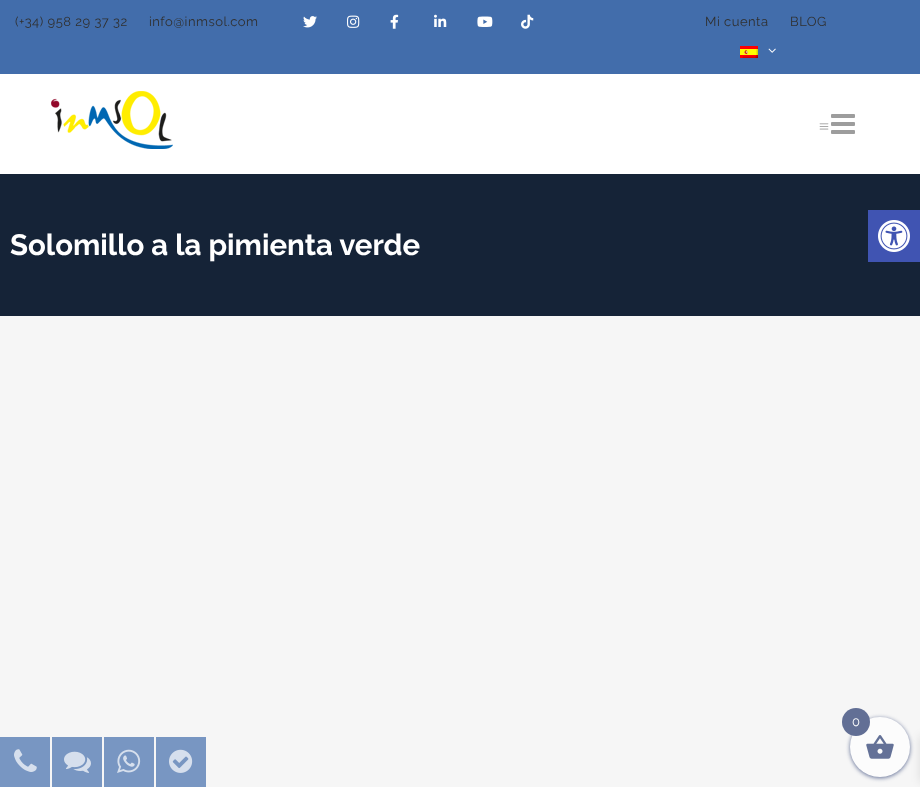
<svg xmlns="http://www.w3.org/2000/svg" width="920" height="787">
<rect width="100%" height="100%" fill="#f6f6f6"/>
<rect width="920" height="74" fill="#426dab"/>
<text x="15" y="26" style="font-family:Raleway;font-size:13px;letter-spacing:0.5px;fill:#303030">(+34) 958 29 37 32</text>
<text x="149" y="26" style="font-family:Raleway;font-size:13px;letter-spacing:0.5px;fill:#303030">info@inmsol.com</text>
<image x="303" y="16" width="14" height="12" href="media/1.png"/>
<image x="347" y="15" width="13" height="13" href="media/2.png"/>
<image x="390" y="14" width="9" height="15" href="media/3.png"/>
<image x="434" y="14" width="13" height="13" href="media/4.png"/>
<image x="477" y="16" width="16" height="11" href="media/5.png"/>
<image x="521" y="14" width="13" height="15" href="media/6.png"/>
<text x="705" y="26" style="font-family:Raleway;font-size:13px;letter-spacing:0.5px;fill:#303030">Mi cuenta</text>
<text x="790" y="26" style="font-family:Raleway;font-size:13px;letter-spacing:0.5px;fill:#303030">BLOG</text>
<image x="740" y="46" width="18" height="12" href="media/7.png"/>
<image x="768" y="48" width="8" height="5" href="media/8.png"/>
<rect y="74" width="920" height="100" fill="#fff"/>
<image x="51" y="91" width="122" height="58" href="media/9.png"/>
<image x="831" y="114" width="24" height="20" href="media/10.png"/>
<image x="819" y="123" width="10" height="7" href="media/11.png"/>
<rect y="174" width="920" height="142" fill="#152337"/>
<text x="10" y="255" style="font-family:Raleway;font-size:29.4px;font-weight:bold;fill:#fff">Solomillo a la pimienta verde</text>
<rect x="868" y="210" width="52" height="52" fill="#4054b2"/>
<image x="878" y="220" width="32" height="32" href="media/12.png"/>
<rect x="850" y="718" width="60" height="60" rx="30" fill="#626f95" filter="blur(2px)"/>
<rect x="920" y="736" width="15" height="46" fill="#0000001a" filter="blur(5px)"/>
<circle cx="880" cy="747" r="30" fill="#fcfcfc"/>
<image x="866" y="735" width="28" height="24" href="media/13.png"/>
<circle cx="856" cy="722" r="14" fill="#626f95"/>
<text x="852" y="726" style="font-family:Raleway;font-size:13px;fill:#fff">0</text>
<rect y="737" width="50" height="50" fill="#7896c2"/>
<image x="14" y="749" width="23" height="23" href="media/14.png"/>
<rect x="52" y="737" width="50" height="50" fill="#7896c2"/>
<image x="64" y="751" width="27" height="22" href="media/15.png"/>
<rect x="104" y="737" width="50" height="50" fill="#7896c2"/>
<image x="117" y="749" width="24" height="24" href="media/16.png"/>
<rect x="156" y="737" width="50" height="50" fill="#7896c2"/>
<image x="169" y="749" width="24" height="24" href="media/17.png"/>
</svg>
